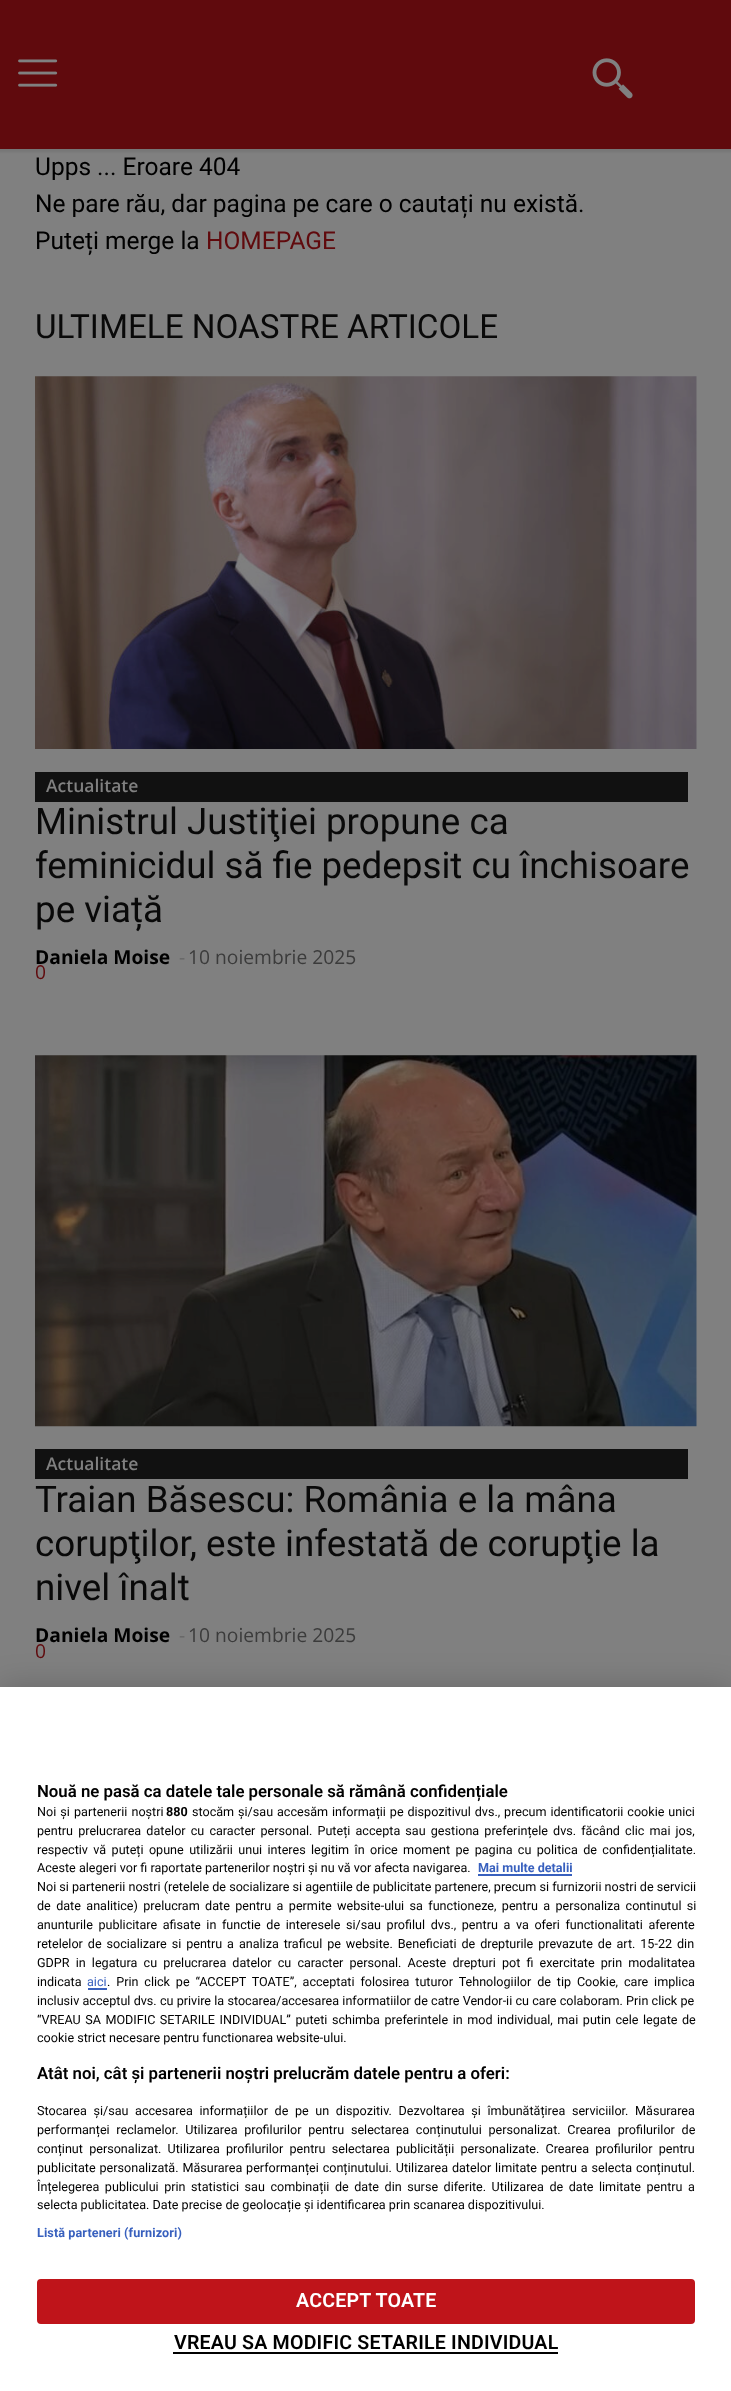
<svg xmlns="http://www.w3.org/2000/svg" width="731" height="2391">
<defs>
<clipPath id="clip1"><path d="M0 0h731v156h-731zm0 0h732v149h-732z" clip-rule="evenodd"/></clipPath>
</defs>
<rect width="100%" height="100%" fill="#808080"/>
<rect width="731" height="149" fill="#600a0d"/>
<image x="18" y="59" width="40" height="28" href="media/1.png"/>
<image x="592" y="58" width="41" height="41" href="media/2.png"/>
<g clip-path="url(#clip1)">
<rect x="-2" width="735" height="152" fill="#00000014" filter="blur(1px)"/>
</g>
<text x="35" y="175" style="font-family:Roboto;font-size:24.5px;fill:#000">Upps ... Eroare 404</text>
<text x="35" y="212" style="font-family:Roboto;font-size:24.5px;fill:#000">Ne pare rău, dar pagina pe care o cautați nu există.</text>
<text x="35" y="249" style="font-family:Roboto;font-size:24.5px;fill:#000">Puteți merge la</text>
<text x="206" y="249" style="font-family:Roboto;font-size:24.5px;fill:#600a0d">HOMEPAGE</text>
<text x="35" y="338" style="font-family:Roboto;font-size:33.25px;fill:#090909">ULTIMELE NOASTRE ARTICOLE</text>
<image x="35" y="376" width="662" height="373" href="media/3.png"/>
<rect x="35" y="772" width="653" height="30" fill="#111"/>
<text x="46" y="792" style="font-family:Open Sans;font-size:17.5px;font-weight:600;fill:#808080">Actualitate</text>
<text x="35" y="834" style="font-family:Roboto;font-size:36.75px;fill:#090909">Ministrul Justiţiei propune ca</text>
<text x="35" y="878" style="font-family:Roboto;font-size:36.75px;fill:#090909">feminicidul să fie pedepsit cu închisoare</text>
<text x="35" y="922" style="font-family:Roboto;font-size:36.75px;fill:#090909">pe viață</text>
<text x="35" y="964" style="font-family:Open Sans;font-size:19.25px;font-weight:bold;fill:#000">Daniela Moise</text>
<text x="179" y="964" style="font-family:Open Sans;font-size:19.25px;fill:#666">-</text>
<text x="188" y="964" style="font-family:Open Sans;font-size:19.25px;fill:#3b3b3b">10 noiembrie 2025</text>
<text x="35" y="979" style="font-family:Open Sans;font-size:19.25px;fill:#600a0d">0</text>
<image x="35" y="1055" width="662" height="372" href="media/4.png"/>
<rect x="35" y="1449" width="653" height="30" fill="#111"/>
<text x="46" y="1470" style="font-family:Open Sans;font-size:17.5px;font-weight:600;fill:#808080">Actualitate</text>
<text x="35" y="1512" style="font-family:Roboto;font-size:36.75px;fill:#090909">Traian Băsescu: România e la mâna</text>
<text x="35" y="1556" style="font-family:Roboto;font-size:36.75px;fill:#090909">corupţilor, este infestată de corupţie la</text>
<text x="35" y="1600" style="font-family:Roboto;font-size:36.75px;fill:#090909">nivel înalt</text>
<text x="35" y="1642" style="font-family:Open Sans;font-size:19.25px;font-weight:bold;fill:#000">Daniela Moise</text>
<text x="179" y="1642" style="font-family:Open Sans;font-size:19.25px;fill:#666">-</text>
<text x="188" y="1642" style="font-family:Open Sans;font-size:19.25px;fill:#3b3b3b">10 noiembrie 2025</text>
<text x="35" y="1658" style="font-family:Open Sans;font-size:19.25px;fill:#600a0d">0</text>
<rect y="1687" width="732" height="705" fill="#00000033" filter="blur(16px)"/>
<rect y="1687" width="731" height="704" fill="#fff"/>
<text x="37" y="1797" style="font-family:Roboto;font-size:16.8px;font-weight:600;fill:#000">Nouă ne pasă ca datele tale personale să rămână confidențiale</text>
<text x="37" y="1816" word-spacing="1" style="font-family:Roboto;font-size:12.6px;fill:#000">Noi și partenerii noștri</text>
<text x="166" y="1816" style="font-family:Roboto;font-size:12.6px;font-weight:bold;fill:#000">880</text>
<text x="192" y="1816" word-spacing="0.75" style="font-family:Roboto;font-size:12.6px;fill:#000">stocăm și/sau accesăm informații pe dispozitivul dvs., precum identificatorii cookie unici</text>
<text x="37" y="1835" word-spacing="2" style="font-family:Roboto;font-size:12.6px;fill:#000">pentru prelucrarea datelor cu caracter personal. Puteți accepta sau gestiona preferințele dvs. făcând clic mai jos,</text>
<text x="37" y="1854" word-spacing="2.25" style="font-family:Roboto;font-size:12.6px;fill:#000">respectiv vă puteți opune utilizării unui interes legitim în orice moment pe pagina cu politica de confidențialitate.</text>
<text x="37" y="1872" style="font-family:Roboto;font-size:12.6px;fill:#000">Aceste alegeri vor fi raportate partenerilor noștri și nu vă vor afecta navigarea.</text>
<text x="478" y="1872" style="font-family:Roboto;font-size:12.6px;font-weight:bold;fill:#3860be">Mai multe detalii</text>
<rect x="478" y="1874" width="94" height="2" fill="#3860be"/>
<text x="37" y="1891" style="font-family:Roboto;font-size:12.6px;fill:#000">Noi si partenerii nostri (retelele de socializare si agentiile de publicitate partenere, precum si furnizorii nostri de servicii</text>
<text x="37" y="1910" word-spacing="2.25" style="font-family:Roboto;font-size:12.6px;fill:#000">de date analitice) prelucram date pentru a permite website-ului sa functioneze, pentru a personaliza continutul si</text>
<text x="37" y="1929" word-spacing="2.5" style="font-family:Roboto;font-size:12.6px;fill:#000">anunturile publicitare afisate in functie de interesele si/sau profilul dvs., pentru a va oferi functionalitati aferente</text>
<text x="37" y="1948" word-spacing="1.8" style="font-family:Roboto;font-size:12.6px;fill:#000">retelelor de socializare si pentru a analiza traficul pe website. Beneficiati de drepturile prevazute de art. 15-22 din</text>
<text x="37" y="1967" word-spacing="3" style="font-family:Roboto;font-size:12.6px;fill:#000">GDPR in legatura cu prelucrarea datelor cu caracter personal. Aceste drepturi pot fi exercitate prin modalitatea</text>
<text x="37" y="1986" style="font-family:Roboto;font-size:12.6px;fill:#000">indicata</text>
<text x="87" y="1986" style="font-family:Roboto;font-size:12.6px;fill:#3860be">aici</text>
<rect x="88" y="1988" width="19" height="2" fill="#3860be"/>
<text x="107" y="1986" word-spacing="2.75" style="font-family:Roboto;font-size:12.6px;fill:#000">. Prin click pe “ACCEPT TOATE”, acceptati folosirea tuturor Tehnologiilor de tip Cookie, care implica</text>
<text x="37" y="2005" word-spacing="0.1" style="font-family:Roboto;font-size:12.6px;fill:#000">inclusiv acceptul dvs. cu privire la stocarea/accesarea informatiilor de catre Vendor-ii cu care colaboram. Prin click pe</text>
<text x="37" y="2024" word-spacing="1.4" style="font-family:Roboto;font-size:12.6px;fill:#000">“VREAU SA MODIFIC SETARILE INDIVIDUAL” puteti schimba preferintele in mod individual, mai putin cele legate de</text>
<text x="37" y="2042" style="font-family:Roboto;font-size:12.6px;fill:#000">cookie strict necesare pentru functionarea website-ului.</text>
<text x="37" y="2079" style="font-family:Roboto;font-size:16.8px;font-weight:600;fill:#000">Atât noi, cât și partenerii noștri prelucrăm datele pentru a oferi:</text>
<text x="37" y="2115" word-spacing="3.5" style="font-family:Roboto;font-size:12.6px;fill:#000">Stocarea și/sau accesarea informațiilor de pe un dispozitiv. Dezvoltarea și îmbunătățirea serviciilor. Măsurarea</text>
<text x="37" y="2134" word-spacing="3.6" style="font-family:Roboto;font-size:12.6px;fill:#000">performanței reclamelor. Utilizarea profilurilor pentru selectarea conținutului personalizat. Crearea profilurilor de</text>
<text x="37" y="2153" word-spacing="3.1" style="font-family:Roboto;font-size:12.6px;fill:#000">conținut personalizat. Utilizarea profilurilor pentru selectarea publicității personalizate. Crearea profilurilor pentru</text>
<text x="37" y="2172" word-spacing="0.75" style="font-family:Roboto;font-size:12.6px;fill:#000">publicitate personalizată. Măsurarea performanței conținutului. Utilizarea datelor limitate pentru a selecta conținutul.</text>
<text x="37" y="2191" word-spacing="2.4" style="font-family:Roboto;font-size:12.6px;fill:#000">Înțelegerea publicului prin statistici sau combinații de date din surse diferite. Utilizarea de date limitate pentru a</text>
<text x="37" y="2209" style="font-family:Roboto;font-size:12.6px;fill:#000">selecta publicitatea. Date precise de geolocație și identificarea prin scanarea dispozitivului.</text>
<text x="37" y="2237" style="font-family:Roboto;font-size:12.6px;font-weight:bold;letter-spacing:0.1px;fill:#3860be">Listă parteneri (furnizori)</text>
<rect x="38" y="2280" width="656" height="43" rx="3" fill="#bf141a" stroke="#bf141a" stroke-width="2"/>
<text x="296" y="2307" style="font-family:Roboto;font-size:19.6px;font-weight:600;letter-spacing:0.2px;fill:#fff">ACCEPT TOATE</text>
<text x="174" y="2349" style="font-family:Roboto;font-size:19.6px;font-weight:600;letter-spacing:0.2px;fill:#000">VREAU SA MODIFIC SETARILE INDIVIDUAL</text>
<rect x="173" y="2352" width="385" height="2" fill="#000"/>
</svg>
